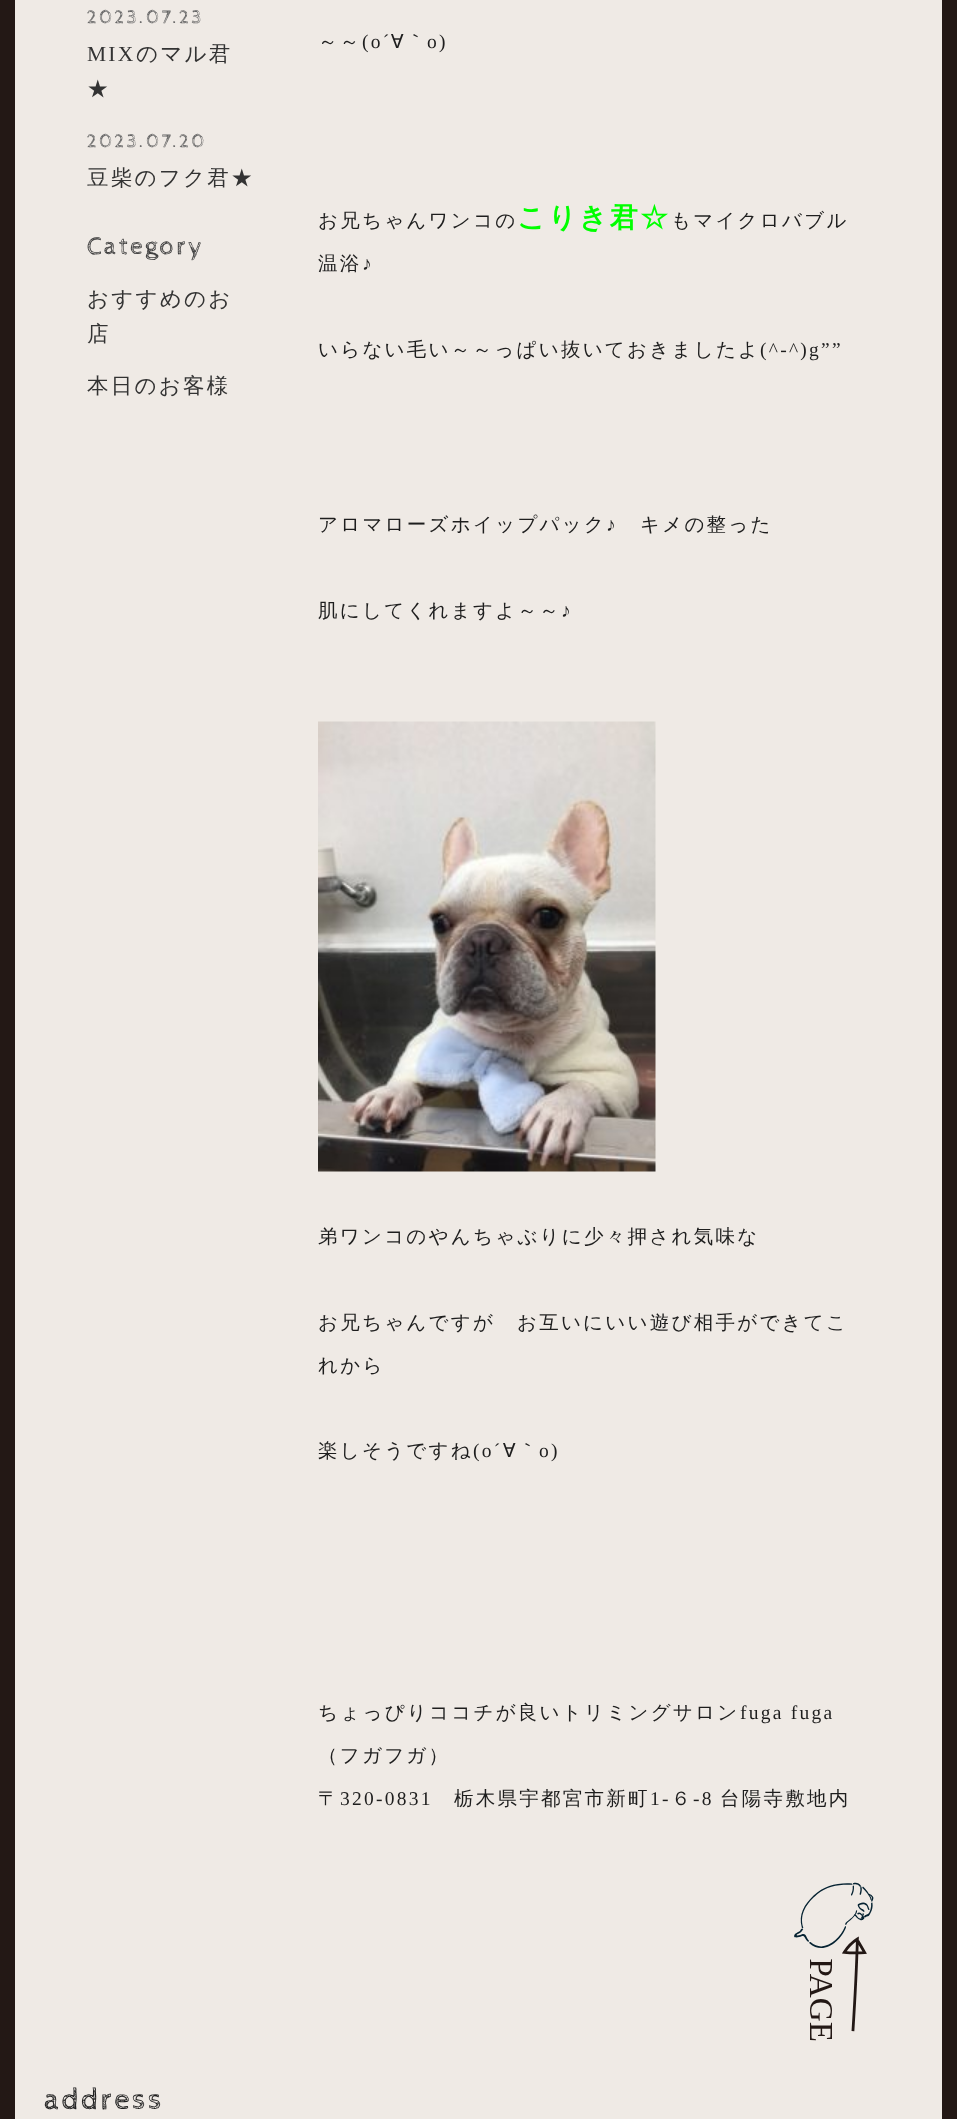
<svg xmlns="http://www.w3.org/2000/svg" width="957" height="2119">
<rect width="100%" height="100%" fill="#efeae5"/>
<rect x="7.5" y="-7.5" width="942" height="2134" fill="none" stroke="#231815" stroke-width="15"/>
<text x="87" y="23" style="font-family:Cabin Sketch;font-size:19.25px;letter-spacing:2.25px;fill:#666">2023.07.23</text>
<text x="87" y="61" style="font-family:Liberation Serif;font-size:21.5px;letter-spacing:2.25px;fill:#333">MIX</text>
<text x="136" y="61" style="font-family:WenQuanYi Zen Hei;font-size:21.5px;font-weight:500;letter-spacing:2.25px;fill:#333">のマル君</text>
<text x="87" y="96" style="font-family:WenQuanYi Zen Hei;font-size:21.5px;font-weight:500;letter-spacing:2.25px;fill:#333">★</text>
<text x="87" y="147" style="font-family:Cabin Sketch;font-size:19.25px;letter-spacing:2.25px;fill:#666">2023.07.20</text>
<text x="87" y="185" style="font-family:WenQuanYi Zen Hei;font-size:21.5px;font-weight:500;letter-spacing:2.25px;fill:#333">豆柴のフク君★</text>
<text x="87" y="254" style="font-family:Cabin Sketch;font-size:25.5px;letter-spacing:2.25px;fill:#3f3f3f">Category</text>
<text x="87" y="306" style="font-family:WenQuanYi Zen Hei;font-size:21.5px;font-weight:500;letter-spacing:2.25px;fill:#333">おすすめのお</text>
<text x="87" y="341" style="font-family:WenQuanYi Zen Hei;font-size:21.5px;font-weight:500;letter-spacing:2.25px;fill:#333">店</text>
<text x="87" y="393" style="font-family:WenQuanYi Zen Hei;font-size:21.5px;font-weight:500;letter-spacing:2.25px;fill:#333">本日のお客様</text>
<text x="318" y="48" style="font-family:WenQuanYi Zen Hei;font-size:19.5px;font-weight:500;letter-spacing:2.25px;fill:#1e1e1e">～～</text>
<text x="362" y="48" style="font-family:Liberation Serif;font-size:19.5px;letter-spacing:2.25px;fill:#1e1e1e">(o´</text>
<text x="391" y="48" style="font-family:WenQuanYi Zen Hei;font-size:19.5px;font-weight:500;letter-spacing:2.25px;fill:#1e1e1e">∀｀</text>
<text x="427" y="48" style="font-family:Liberation Serif;font-size:19.5px;letter-spacing:2.25px;fill:#1e1e1e">o)</text>
<text x="318" y="227" style="font-family:WenQuanYi Zen Hei;font-size:19.5px;font-weight:500;letter-spacing:2.25px;fill:#1e1e1e">お兄ちゃんワンコの</text>
<text x="517" y="227" style="font-family:WenQuanYi Zen Hei;font-size:28px;font-weight:bold;letter-spacing:2.25px;fill:#0f0">こりき君☆</text>
<text x="671" y="227" style="font-family:WenQuanYi Zen Hei;font-size:19.5px;font-weight:500;letter-spacing:2.25px;fill:#1e1e1e">もマイクロバブル</text>
<text x="318" y="270" style="font-family:WenQuanYi Zen Hei;font-size:19.5px;font-weight:500;letter-spacing:2.25px;fill:#1e1e1e">温浴</text>
<text x="362" y="270" style="font-family:Liberation Serif;font-size:19.5px;letter-spacing:2.25px;fill:#1e1e1e">♪</text>
<text x="318" y="356" style="font-family:WenQuanYi Zen Hei;font-size:19.5px;font-weight:500;letter-spacing:2.25px;fill:#1e1e1e">いらない毛い～～っぱい抜いておきましたよ</text>
<text x="760" y="356" style="font-family:Liberation Serif;font-size:19.5px;letter-spacing:2.25px;fill:#1e1e1e">(^-^)g””</text>
<text x="318" y="531" style="font-family:WenQuanYi Zen Hei;font-size:19.5px;font-weight:500;letter-spacing:2.25px;fill:#1e1e1e">アロマローズホイップパック</text>
<text x="606" y="531" style="font-family:Liberation Serif;font-size:19.5px;letter-spacing:2.25px;fill:#1e1e1e">♪</text>
<text x="640" y="531" style="font-family:WenQuanYi Zen Hei;font-size:19.5px;font-weight:500;letter-spacing:2.25px;fill:#1e1e1e">キメの整った</text>
<text x="318" y="617" style="font-family:WenQuanYi Zen Hei;font-size:19.5px;font-weight:500;letter-spacing:2.25px;fill:#1e1e1e">肌にしてくれますよ～～</text>
<text x="561" y="617" style="font-family:Liberation Serif;font-size:19.5px;letter-spacing:2.25px;fill:#1e1e1e">♪</text>
<image x="318" y="721" width="338" height="451" href="media/1.png"/>
<text x="318" y="1243" style="font-family:WenQuanYi Zen Hei;font-size:19.5px;font-weight:500;letter-spacing:2.25px;fill:#1e1e1e">弟ワンコのやんちゃぶりに少々押され気味な</text>
<text x="318" y="1329" style="font-family:WenQuanYi Zen Hei;font-size:19.5px;font-weight:500;letter-spacing:2.25px;fill:#1e1e1e">お兄ちゃんですが　お互いにいい遊び相手ができてこ</text>
<text x="318" y="1372" style="font-family:WenQuanYi Zen Hei;font-size:19.5px;font-weight:500;letter-spacing:2.25px;fill:#1e1e1e">れから</text>
<text x="318" y="1457" style="font-family:WenQuanYi Zen Hei;font-size:19.5px;font-weight:500;letter-spacing:2.25px;fill:#1e1e1e">楽しそうですね</text>
<text x="473" y="1457" style="font-family:Liberation Serif;font-size:19.5px;letter-spacing:2.25px;fill:#1e1e1e">(o´</text>
<text x="503" y="1457" style="font-family:WenQuanYi Zen Hei;font-size:19.5px;font-weight:500;letter-spacing:2.25px;fill:#1e1e1e">∀｀</text>
<text x="539" y="1457" style="font-family:Liberation Serif;font-size:19.5px;letter-spacing:2.25px;fill:#1e1e1e">o)</text>
<text x="318" y="1719" style="font-family:WenQuanYi Zen Hei;font-size:19.5px;font-weight:500;letter-spacing:2.25px;fill:#1e1e1e">ちょっぴりココチが良いトリミングサロン</text>
<text x="740" y="1719" style="font-family:Liberation Serif;font-size:19.5px;letter-spacing:2.25px;fill:#1e1e1e">fuga fuga</text>
<text x="318" y="1762" style="font-family:WenQuanYi Zen Hei;font-size:19.5px;font-weight:500;letter-spacing:2.25px;fill:#1e1e1e">（フガフガ）</text>
<text x="318" y="1805" style="font-family:WenQuanYi Zen Hei;font-size:19.5px;font-weight:500;letter-spacing:2.25px;fill:#1e1e1e">〒</text>
<text x="340" y="1805" style="font-family:Liberation Serif;font-size:19.5px;letter-spacing:2.25px;fill:#1e1e1e">320-0831</text>
<text x="454" y="1805" style="font-family:WenQuanYi Zen Hei;font-size:19.5px;font-weight:500;letter-spacing:2.25px;fill:#1e1e1e">栃木県宇都宮市新町</text>
<text x="650" y="1805" style="font-family:Liberation Serif;font-size:19.5px;letter-spacing:2.25px;fill:#1e1e1e">1-</text>
<text x="671" y="1805" style="font-family:WenQuanYi Zen Hei;font-size:19.5px;font-weight:500;letter-spacing:2.25px;fill:#1e1e1e">６</text>
<text x="693" y="1805" style="font-family:Liberation Serif;font-size:19.5px;letter-spacing:2.25px;fill:#1e1e1e">-8</text>
<text x="720" y="1805" style="font-family:WenQuanYi Zen Hei;font-size:19.5px;font-weight:500;letter-spacing:2.25px;fill:#1e1e1e">台陽寺敷地内</text>
<text x="44" y="2109" style="font-family:Cabin Sketch;font-size:31px;letter-spacing:2px;fill:#1e1e1e">address</text>
<image x="794" y="1882" width="80" height="159" href="media/2.png"/>
</svg>
